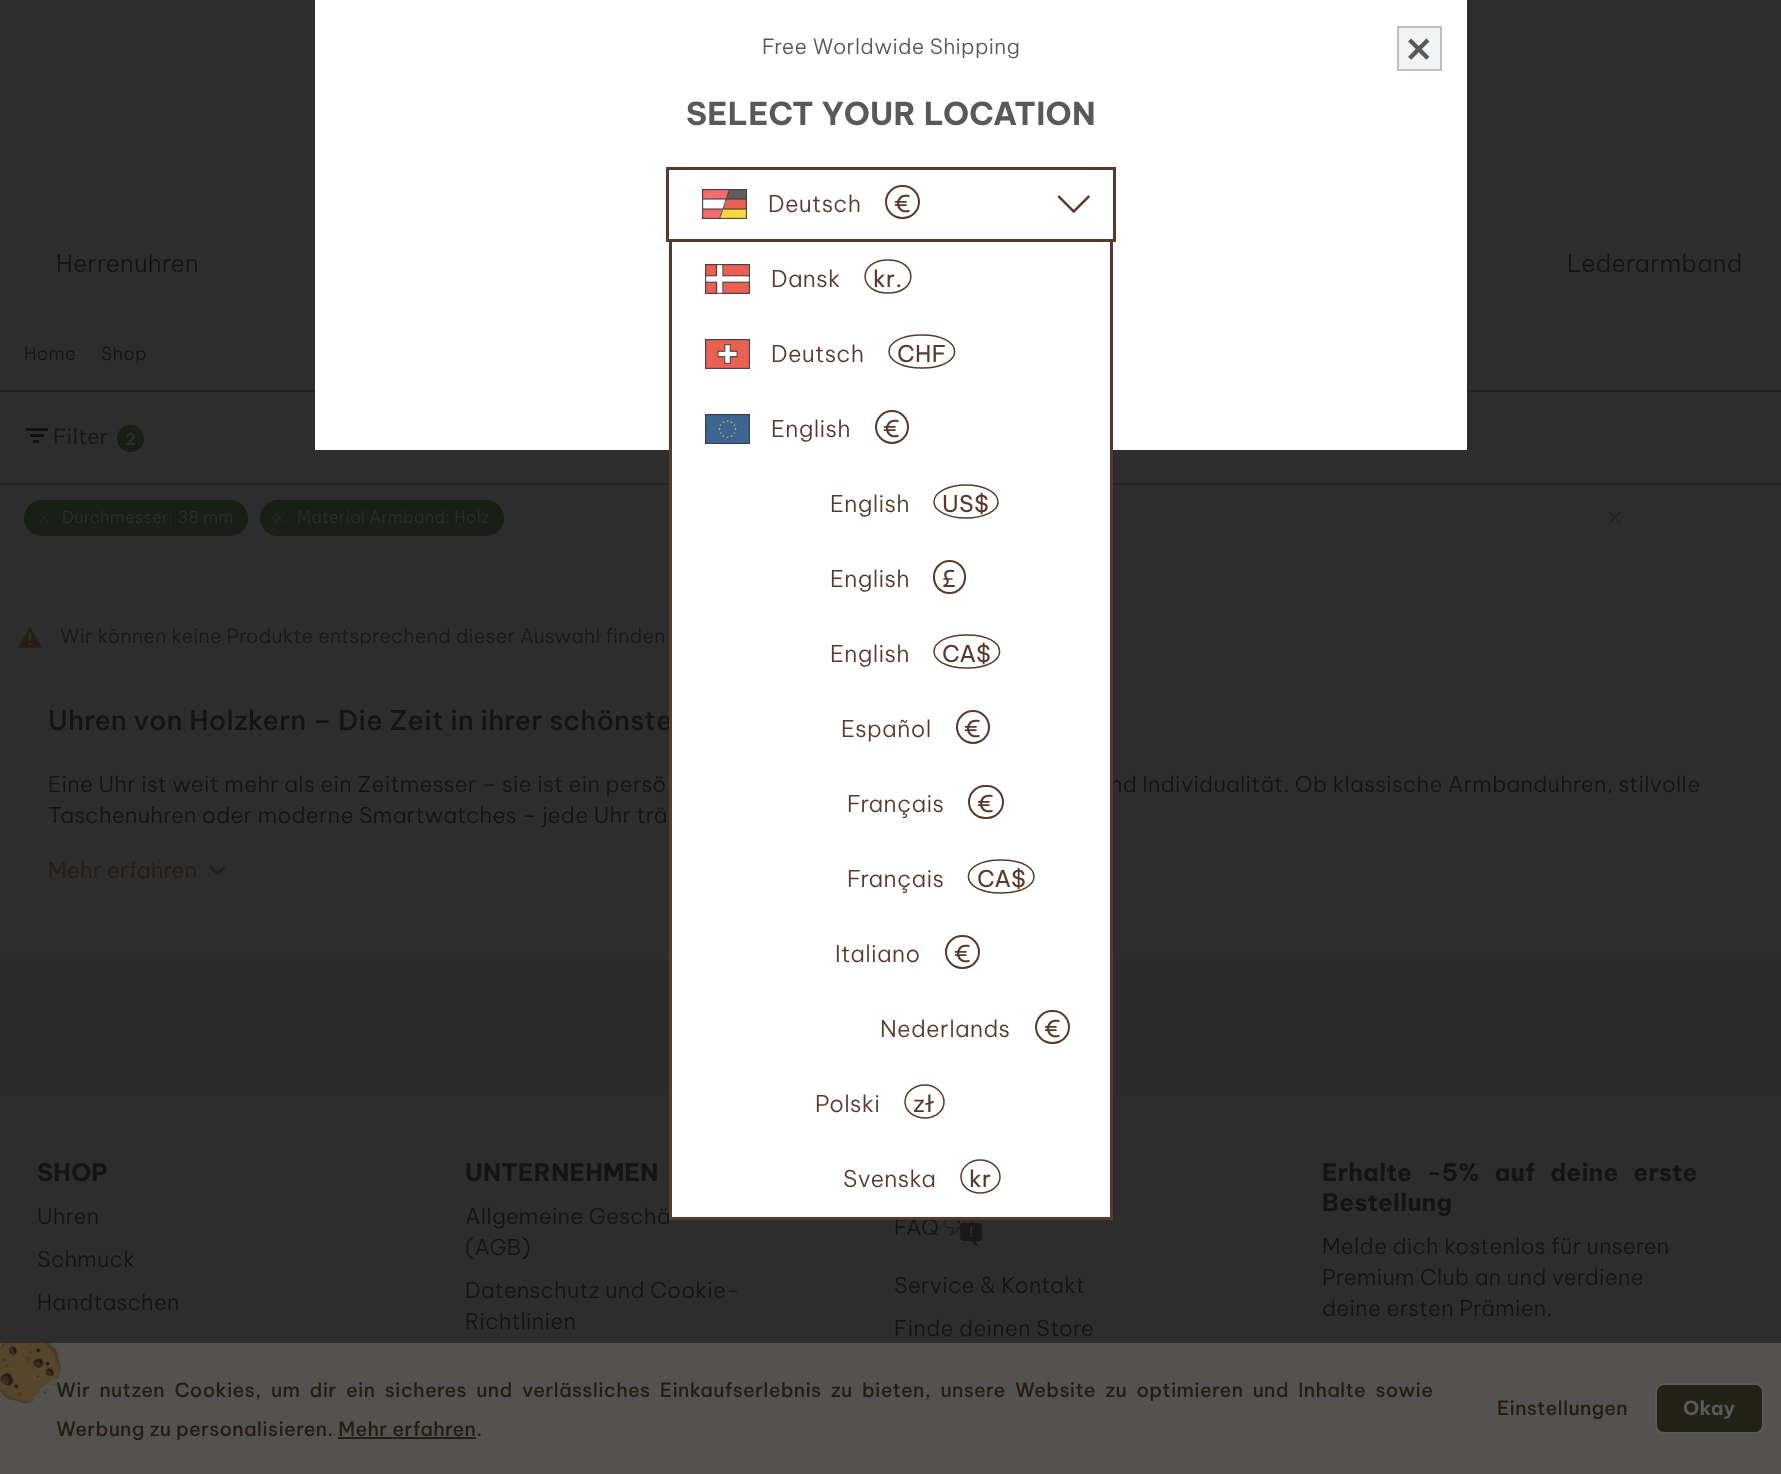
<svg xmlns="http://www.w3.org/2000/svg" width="1781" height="1474">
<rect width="100%" height="100%" fill="#2d2d2d"/>
<rect y="390" width="1781" height="2" fill="#242424"/>
<rect x="315" width="1152" height="450" fill="#fff"/>
<text x="762" y="54" style="font-family:Be Vietnam Pro;font-size:21px;font-weight:300;letter-spacing:0.3px;fill:#595959">Free Worldwide Shipping</text>
<rect x="1398" y="27" width="43" height="43" fill="#f2f3f4" stroke="#c1bfbb" stroke-width="2"/>
<text x="1404" y="62" style="font-family:DejaVu Sans;font-size:34px;font-weight:bold;letter-spacing:0.3px;fill:#595959">✕</text>
<text x="686" y="125" style="font-family:Be Vietnam Pro;font-size:31.5px;font-weight:bold;letter-spacing:0.3px;fill:#595959">SELECT YOUR LOCATION</text>
<rect x="1113" y="167" width="3" height="75" fill="#583a2d"/>
<rect x="666" y="167" width="3" height="75" fill="#583a2d"/>
<rect x="669" y="167" width="444" height="3" fill="#583a2d"/>
<rect x="669" y="239" width="444" height="3" fill="#583a2d"/>
<image x="702" y="189" width="45" height="30" href="media/1.png"/>
<text x="768" y="212" style="font-family:Be Vietnam Pro;font-size:23px;font-weight:300;letter-spacing:0.3px;fill:#583a2d">Deutsch</text>
<rect x="886" y="186" width="33" height="32" rx="16" fill="none" stroke="#583a2d" stroke-width="2"/>
<text x="894" y="212" style="font-family:Be Vietnam Pro;font-size:23px;letter-spacing:0.3px;fill:#583a2d">€</text>
<path d="M1057.5 197l1.5-2l16 16l-1.5 2z" fill="#583a2d"/>
<path d="M1088.5 195l1.5 2l-16 16l-1.5-2z" fill="#583a2d"/>
<rect y="483" width="1781" height="2" fill="#242424"/>
<rect y="959" width="1781" height="136" fill="#2a2a2a"/>
<rect x="672" y="450" width="438" height="767" fill="#fff"/>
<text x="1110" y="792" style="font-family:Be Vietnam Pro;font-size:21.75px;font-weight:300;letter-spacing:0.3px;fill:#141414">nd Individualität. Ob klassische Armbanduhren, stilvolle</text>
<rect x="1110" y="242" width="3" height="978" fill="#583a2d"/>
<text x="465" y="1224" style="font-family:Be Vietnam Pro;font-size:21.75px;font-weight:300;letter-spacing:0.3px;fill:#141414">Allgemeine Geschä</text>
<text x="894" y="1235" style="font-family:Be Vietnam Pro;font-size:21.75px;font-weight:300;letter-spacing:0.3px;fill:#141414">FAQ</text>
<rect x="669" y="1217" width="444" height="3" fill="#583a2d"/>
<text x="48" y="730" style="font-family:Be Vietnam Pro;font-size:27px;font-weight:500;letter-spacing:0.3px;fill:#141414">Uhren von Holzkern – Die Zeit in ihrer schönste</text>
<rect x="669" y="242" width="3" height="978" fill="#583a2d"/>
<image x="705" y="264" width="45" height="30" href="media/2.png"/>
<text x="771" y="287" style="font-family:Be Vietnam Pro;font-size:23px;font-weight:300;letter-spacing:0.3px;fill:#583a2d">Dansk</text>
<path d="M888 260c30.5 0 30.5 33 0 33c-30.5 0-30.5-33 0-33z" fill="none" stroke="#583a2d" stroke-width="1.5"/>
<text x="873" y="287" style="font-family:Be Vietnam Pro;font-size:23px;letter-spacing:0.3px;fill:#583a2d">kr.</text>
<image x="705" y="339" width="45" height="30" href="media/3.png"/>
<text x="771" y="362" style="font-family:Be Vietnam Pro;font-size:23px;font-weight:300;letter-spacing:0.3px;fill:#583a2d">Deutsch</text>
<path d="M922 335c43.5 0 43.5 33 0 33c-44 0-44-33 0-33z" fill="none" stroke="#583a2d" stroke-width="1.5"/>
<text x="897" y="362" style="font-family:Be Vietnam Pro;font-size:23px;letter-spacing:0.3px;fill:#583a2d">CHF</text>
<image x="705" y="414" width="45" height="30" href="media/4.png"/>
<text x="771" y="437" style="font-family:Be Vietnam Pro;font-size:23px;font-weight:300;letter-spacing:0.3px;fill:#583a2d">English</text>
<circle cx="892" cy="427" r="16" fill="none" stroke="#583a2d" stroke-width="2"/>
<text x="883" y="437" style="font-family:Be Vietnam Pro;font-size:23px;letter-spacing:0.3px;fill:#583a2d">€</text>
<text x="830" y="512" style="font-family:Be Vietnam Pro;font-size:23px;font-weight:300;letter-spacing:0.3px;fill:#583a2d">English</text>
<path d="M966 485c18 0 32 7.5 32 17c0 9-14 16-32 16c-18 0-32-7-32-16c0-9.5 14-17 32-17z" fill="none" stroke="#583a2d" stroke-width="1.5"/>
<text x="942" y="512" style="font-family:Be Vietnam Pro;font-size:23px;letter-spacing:0.3px;fill:#583a2d">US$</text>
<text x="830" y="587" style="font-family:Be Vietnam Pro;font-size:23px;font-weight:300;letter-spacing:0.3px;fill:#583a2d">English</text>
<rect x="934" y="561" width="31" height="32" rx="15.5" fill="none" stroke="#583a2d" stroke-width="2"/>
<text x="942" y="587" style="font-family:Be Vietnam Pro;font-size:23px;letter-spacing:0.3px;fill:#583a2d">£</text>
<text x="830" y="662" style="font-family:Be Vietnam Pro;font-size:23px;font-weight:300;letter-spacing:0.3px;fill:#583a2d">English</text>
<path d="M967 635c43.5 0 43.5 33 0 33c-44 0-44-33 0-33z" fill="none" stroke="#583a2d" stroke-width="1.5"/>
<text x="942" y="662" style="font-family:Be Vietnam Pro;font-size:23px;letter-spacing:0.3px;fill:#583a2d">CA$</text>
<text x="841" y="737" style="font-family:Be Vietnam Pro;font-size:23px;font-weight:300;letter-spacing:0.3px;fill:#583a2d">Español</text>
<circle cx="973" cy="727" r="16" fill="none" stroke="#583a2d" stroke-width="2"/>
<text x="964" y="737" style="font-family:Be Vietnam Pro;font-size:23px;letter-spacing:0.3px;fill:#583a2d">€</text>
<text x="847" y="812" style="font-family:Be Vietnam Pro;font-size:23px;font-weight:300;letter-spacing:0.3px;fill:#583a2d">Français</text>
<rect x="969" y="786" width="34" height="32" rx="16" fill="none" stroke="#583a2d" stroke-width="2"/>
<text x="977" y="812" style="font-family:Be Vietnam Pro;font-size:23px;letter-spacing:0.3px;fill:#583a2d">€</text>
<text x="847" y="887" style="font-family:Be Vietnam Pro;font-size:23px;font-weight:300;letter-spacing:0.3px;fill:#583a2d">Français</text>
<path d="M1001 860c44 0 44 33 0 33c-43.5 0-43.5-33 0-33z" fill="none" stroke="#583a2d" stroke-width="1.5"/>
<text x="977" y="887" style="font-family:Be Vietnam Pro;font-size:23px;letter-spacing:0.3px;fill:#583a2d">CA$</text>
<text x="835" y="962" style="font-family:Be Vietnam Pro;font-size:23px;font-weight:300;letter-spacing:0.3px;fill:#583a2d">Italiano</text>
<rect x="946" y="936" width="33" height="32" rx="16" fill="none" stroke="#583a2d" stroke-width="2"/>
<text x="954" y="962" style="font-family:Be Vietnam Pro;font-size:23px;letter-spacing:0.3px;fill:#583a2d">€</text>
<text x="880" y="1037" style="font-family:Be Vietnam Pro;font-size:23px;font-weight:300;letter-spacing:0.3px;fill:#583a2d">Nederlands</text>
<rect x="1036" y="1011" width="33" height="32" rx="16" fill="none" stroke="#583a2d" stroke-width="2"/>
<text x="1044" y="1037" style="font-family:Be Vietnam Pro;font-size:23px;letter-spacing:0.3px;fill:#583a2d">€</text>
<text x="815" y="1112" style="font-family:Be Vietnam Pro;font-size:23px;font-weight:300;letter-spacing:0.3px;fill:#583a2d">Polski</text>
<path d="M925 1085c10.5 0 19 7.5 19 17c0 9-8.5 16-19 16c-11 0-20-7-20-16c0-9.5 9-17 20-17z" fill="none" stroke="#583a2d" stroke-width="1.5"/>
<text x="913" y="1112" style="font-family:Be Vietnam Pro;font-size:23px;letter-spacing:0.3px;fill:#583a2d">zł</text>
<text x="843" y="1187" style="font-family:Be Vietnam Pro;font-size:23px;font-weight:300;letter-spacing:0.3px;fill:#583a2d">Svenska</text>
<path d="M980 1160c11 0 20 7.5 20 17c0 9-9 16-20 16c-10.5 0-19-7-19-16c0-9.5 8.5-17 19-17z" fill="none" stroke="#583a2d" stroke-width="1.5"/>
<text x="969" y="1187" style="font-family:Be Vietnam Pro;font-size:23px;letter-spacing:0.3px;fill:#583a2d">kr</text>
<text x="56" y="272" style="font-family:Be Vietnam Pro;font-size:24px;font-weight:300;letter-spacing:0.3px;fill:#141414">Herrenuhren</text>
<text x="1567" y="272" style="font-family:Be Vietnam Pro;font-size:24px;font-weight:300;letter-spacing:0.3px;fill:#141414">Lederarmband</text>
<text x="24" y="360" style="font-family:Be Vietnam Pro;font-size:18px;font-weight:300;letter-spacing:0.3px;fill:#141414">Home</text>
<text x="101" y="360" style="font-family:Be Vietnam Pro;font-size:18px;font-weight:300;letter-spacing:0.3px;fill:#141414">Shop</text>
<rect x="26" y="428" width="22" height="3" fill="#121212"/>
<rect x="30" y="434" width="14" height="3" fill="#121212"/>
<rect x="33" y="440" width="6" height="3" fill="#121212"/>
<text x="53" y="444" style="font-family:Be Vietnam Pro;font-size:21px;letter-spacing:0.3px;fill:#1b1817">Filter</text>
<circle cx="130.5" cy="438.5" r="13.5" fill="#191e17"/>
<text x="125" y="445" style="font-family:Be Vietnam Pro;font-size:16.5px;font-weight:bold;letter-spacing:0.3px;fill:#2d2d2d">2</text>
<rect x="24" y="500" width="224" height="36" rx="18" fill="#191e17"/>
<image x="38" y="513" width="11" height="10" href="media/5.png"/>
<text x="62" y="523" style="font-family:Be Vietnam Pro;font-size:16.5px;font-weight:300;letter-spacing:0.3px;fill:#2d2d2d">Durchmesser: 38 mm</text>
<rect x="260" y="500" width="244" height="36" rx="18" fill="#191e17"/>
<image x="274" y="513" width="10" height="10" href="media/6.png"/>
<text x="297" y="523" style="font-family:Be Vietnam Pro;font-size:16.5px;font-weight:300;letter-spacing:0.3px;fill:#2d2d2d">Material Armband: Holz</text>
<image x="1608" y="511" width="13" height="13" href="media/7.png"/>
<image x="18" y="626" width="24" height="22" href="media/8.png"/>
<text x="60" y="643" style="font-family:Be Vietnam Pro;font-size:19.5px;font-weight:300;letter-spacing:0.3px;fill:#1b1817">Wir können keine Produkte entsprechend dieser Auswahl finden</text>
<text x="48" y="792" style="font-family:Be Vietnam Pro;font-size:21.75px;font-weight:300;letter-spacing:0.3px;fill:#141414">Eine Uhr ist weit mehr als ein Zeitmesser – sie ist ein persö</text>
<text x="48" y="823" style="font-family:Be Vietnam Pro;font-size:21.75px;font-weight:300;letter-spacing:0.3px;fill:#141414">Taschenuhren oder moderne Smartwatches – jede Uhr trä</text>
<text x="48" y="878" style="font-family:Be Vietnam Pro;font-size:21.75px;font-weight:300;letter-spacing:0.3px;fill:#251c12">Mehr erfahren</text>
<image x="210" y="866" width="15" height="10" href="media/9.png"/>
<text x="37" y="1181" style="font-family:Be Vietnam Pro;font-size:24px;font-weight:bold;letter-spacing:0.3px;fill:#141414">SHOP</text>
<text x="37" y="1224" style="font-family:Be Vietnam Pro;font-size:21.75px;font-weight:300;letter-spacing:0.3px;fill:#141414">Uhren</text>
<text x="37" y="1267" style="font-family:Be Vietnam Pro;font-size:21.75px;font-weight:300;letter-spacing:0.3px;fill:#141414">Schmuck</text>
<text x="37" y="1310" style="font-family:Be Vietnam Pro;font-size:21.75px;font-weight:300;letter-spacing:0.3px;fill:#141414">Handtaschen</text>
<text x="465" y="1181" style="font-family:Be Vietnam Pro;font-size:24px;font-weight:bold;letter-spacing:0.3px;fill:#141414">UNTERNEHMEN</text>
<text x="465" y="1255" style="font-family:Be Vietnam Pro;font-size:21.75px;font-weight:300;letter-spacing:0.3px;fill:#141414">(AGB)</text>
<text x="465" y="1298" style="font-family:Be Vietnam Pro;font-size:21.75px;font-weight:300;letter-spacing:0.3px;fill:#141414">Datenschutz und Cookie-</text>
<text x="465" y="1329" style="font-family:Be Vietnam Pro;font-size:21.75px;font-weight:300;letter-spacing:0.3px;fill:#141414">Richtlinien</text>
<image x="944" y="1220" width="39" height="27" href="media/10.png"/>
<text x="894" y="1293" style="font-family:Be Vietnam Pro;font-size:21.75px;font-weight:300;letter-spacing:0.3px;fill:#141414">Service &amp; Kontakt</text>
<text x="894" y="1336" style="font-family:Be Vietnam Pro;font-size:21.75px;font-weight:300;letter-spacing:0.3px;fill:#141414">Finde deinen Store</text>
<text x="1322" y="1181" word-spacing="9" style="font-family:Be Vietnam Pro;font-size:24px;font-weight:bold;letter-spacing:0.3px;fill:#141414">Erhalte -5% auf deine erste</text>
<text x="1322" y="1211" style="font-family:Be Vietnam Pro;font-size:24px;font-weight:bold;letter-spacing:0.3px;fill:#141414">Bestellung</text>
<text x="1322" y="1254" style="font-family:Be Vietnam Pro;font-size:21.75px;font-weight:300;letter-spacing:0.3px;fill:#141414">Melde dich kostenlos für unseren</text>
<text x="1322" y="1285" style="font-family:Be Vietnam Pro;font-size:21.75px;font-weight:300;letter-spacing:0.3px;fill:#141414">Premium Club an und verdiene</text>
<text x="1322" y="1316" style="font-family:Be Vietnam Pro;font-size:21.75px;font-weight:300;letter-spacing:0.3px;fill:#141414">deine ersten Prämien.</text>
<rect y="1343" width="1781" height="131" fill="#53524f"/>
<image x="0" y="1343" width="61" height="61" href="media/11.png"/>
<text x="56" y="1397" word-spacing="4.6" style="font-family:Be Vietnam Pro;font-size:19.5px;font-weight:500;letter-spacing:0.3px;fill:#251c12">Wir nutzen Cookies, um dir ein sicheres und verlässliches Einkaufserlebnis zu bieten, unsere Website zu optimieren und Inhalte sowie</text>
<text x="56" y="1436" style="font-family:Be Vietnam Pro;font-size:19.5px;font-weight:500;letter-spacing:0.3px;fill:#251c12">Werbung zu personalisieren. Mehr erfahren.</text>
<rect x="338" y="1437" width="138" height="2" fill="#212116"/>
<text x="1497" y="1415" style="font-family:Be Vietnam Pro;font-size:19.5px;font-weight:500;letter-spacing:0.3px;fill:#251c12">Einstellungen</text>
<rect x="1656" y="1384" width="107" height="49" rx="8" fill="#212116" stroke="#595959" stroke-width="2"/>
<text x="1683" y="1415" style="font-family:Be Vietnam Pro;font-size:19.5px;font-weight:bold;letter-spacing:0.3px;fill:#595959">Okay</text>
</svg>
